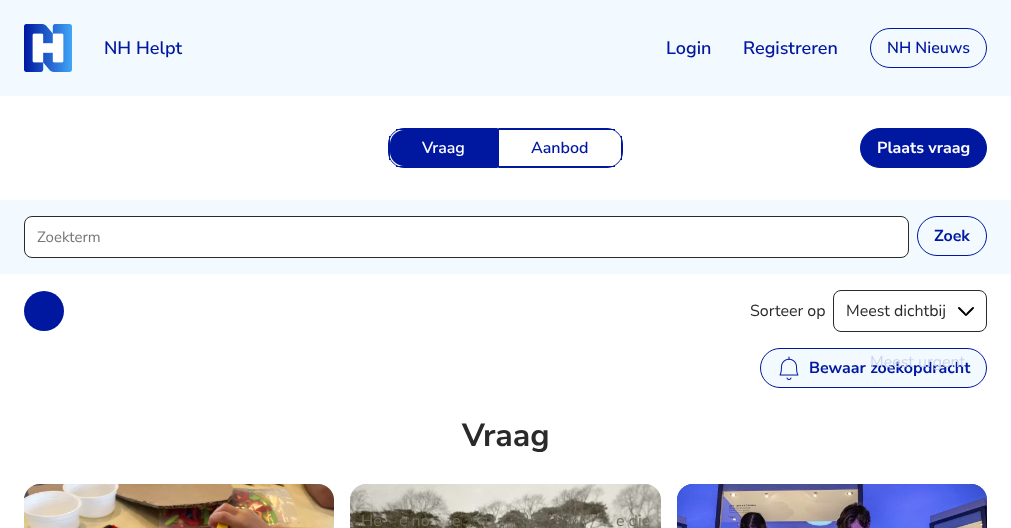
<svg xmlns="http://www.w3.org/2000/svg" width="1011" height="528">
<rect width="100%" height="100%" fill="#fff"/>
<rect width="1011" height="96" fill="#f3faff"/>
<image x="24" y="24" width="48" height="48" href="media/1.png"/>
<text x="104" y="54" style="font-family:Nunito Sans;font-size:18px;font-weight:600;fill:#0017a0">NH Helpt</text>
<text x="666" y="54" style="font-family:Nunito Sans;font-size:18px;font-weight:600;fill:#0017a0">Login</text>
<text x="743" y="54" style="font-family:Nunito Sans;font-size:18px;font-weight:600;fill:#0017a0">Registreren</text>
<rect x="870.5" y="28.5" width="116" height="39" rx="19.5" fill="none" stroke="#0017a0"/>
<text x="887" y="53" style="font-family:Nunito Sans;font-size:16px;font-weight:600;fill:#0017a0">NH Nieuws</text>
<path d="M404 130h93v36h-93c-7.5 0-14-6.5-14-14v-8c0-7.5 6.5-14 14-14z" fill="#0017a0"/>
<path d="M404 128.5h93.5v39h-93.5c-8.5 0-15.5-7-15.5-15.5v-8c0-8.5 7-15.5 15.5-15.5z" fill="none" stroke="#0017a0"/>
<rect x="396" y="129" width="102" height="1" fill="#0017a0"/>
<rect x="396" y="166" width="102" height="1" fill="#0017a0"/>
<rect x="389" y="136" width="1" height="24" fill="#0017a0"/>
<text x="422" y="153" style="font-family:Nunito Sans;font-size:16px;font-weight:600;fill:#fff">Vraag</text>
<path d="M498.5 128.5h108.5c8.5 0 15.5 7 15.5 15.5v8c0 8.5-7 15.5-15.5 15.5h-108.5z" fill="none" stroke="#0017a0"/>
<rect x="498" y="129" width="117" height="1" fill="#0017a0"/>
<rect x="621" y="136" width="1" height="24" fill="#0017a0"/>
<rect x="498" y="166" width="117" height="1" fill="#0017a0"/>
<text x="531" y="153" style="font-family:Nunito Sans;font-size:16px;font-weight:600;fill:#0017a0">Aanbod</text>
<rect x="860.5" y="128.5" width="126" height="39" rx="19.5" fill="#0017a0" stroke="#0017a0"/>
<text x="877" y="153" style="font-family:Nunito Sans;font-size:16px;font-weight:bold;fill:#fff">Plaats vraag</text>
<rect y="200" width="1011" height="74" fill="#f3faff"/>
<rect x="24.5" y="216.5" width="884" height="41" rx="7.5" fill="#fff" stroke="#2a2a2a"/>
<text x="37" y="242" style="font-family:Nunito Sans;font-size:15px;fill:#757575">Zoekterm</text>
<rect x="917.5" y="216.5" width="69" height="39" rx="19.5" fill="none" stroke="#0017a0"/>
<text x="934" y="241" style="font-family:Nunito Sans;font-size:16px;font-weight:bold;fill:#0017a0">Zoek</text>
<circle cx="44" cy="311" r="20" fill="#0017a0"/>
<text x="750" y="316" style="font-family:Nunito Sans;font-size:16px;fill:#2a2a2a">Sorteer op</text>
<path d="M973 308l-5.5 5.5c-1.5 2-1.5 2-3 0l-5.5-5.5" fill="none" stroke="#000" stroke-width="2" stroke-linecap="round" stroke-linejoin="round"/>
<rect x="833.5" y="290.5" width="153" height="41" rx="7.5" fill="none" stroke="#2a2a2a"/>
<text x="846" y="316" style="font-family:Nunito Sans;font-size:16px;fill:#2a2a2a">Meest dichtbij</text>
<rect x="760.5" y="348.5" width="226" height="39" rx="19.5" fill="#f3faff" stroke="#0017a0"/>
<text x="809" y="373" style="font-family:Nunito Sans;font-size:16px;font-weight:bold;fill:#0017a0">Bewaar zoekopdracht</text>
<text x="870" y="367" style="font-family:Nunito Sans;font-size:16px;fill:#ccd5f0">Meest urgent</text>
<image x="779" y="356" width="20" height="24" href="media/2.png"/>
<text x="462" y="446" style="font-family:Nunito Sans;font-size:32px;font-weight:bold;fill:#2a2a2a">Vraag</text>
<path d="M40 484h278c9 0 16 7 16 16v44h-310v-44c0-9 7-16 16-16z" fill="#dfcbb5"/>
<image x="24" y="484" width="310" height="44" href="media/3.png"/>
<path d="M366 484h279c9 0 16 7 16 16v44h-311v-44c0-9 7-16 16-16z" fill="#e5e3dc"/>
<image x="350" y="484" width="311" height="44" href="media/4.png"/>
<path d="M693 484h278c9 0 16 7 16 16v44h-310v-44c0-9 7-16 16-16z" fill="#3d449c"/>
<image x="677" y="484" width="310" height="44" href="media/5.png"/>
<text x="361" y="526" style="font-family:Nunito Sans;font-size:16px;fill:#736e5f">He</text>
<text x="399" y="526" style="font-family:Nunito Sans;font-size:16px;fill:#736e5f">e no</text>
<text x="452" y="526" style="font-family:Nunito Sans;font-size:16px;fill:#736e5f">e</text>
<text x="616" y="526" style="font-family:Nunito Sans;font-size:16px;fill:#736e5f">e die</text>
</svg>
